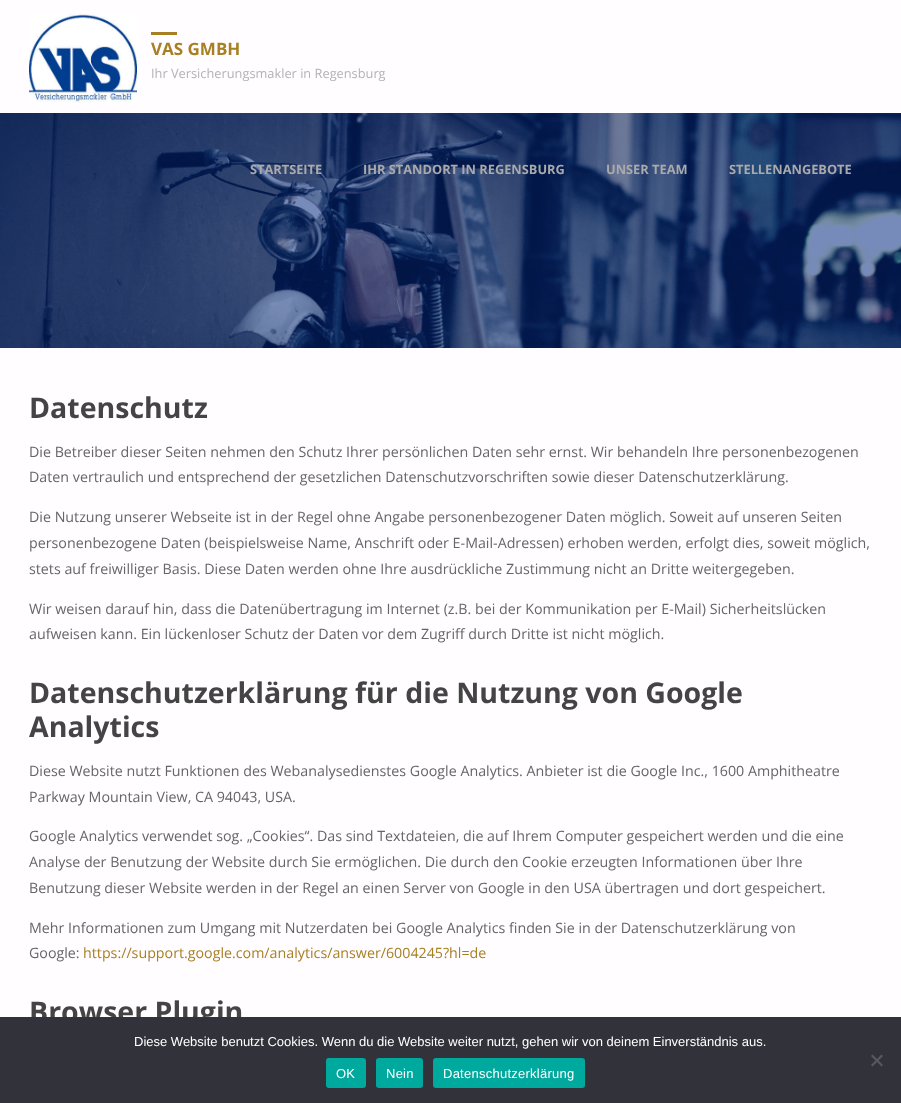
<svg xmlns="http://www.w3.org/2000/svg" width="901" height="1103">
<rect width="100%" height="100%" fill="#fffdff"/>
<image x="29" y="13" width="108" height="90" href="media/1.png"/>
<rect x="151" y="32" width="26" height="3" fill="#a88023"/>
<text x="151" y="55" style="font-family:Open Sans;font-size:17px;font-weight:bold;fill:#a88023">VAS GMBH</text>
<text x="151" y="78" style="font-family:Open Sans;font-size:12.8px;fill:#b3b3b3">Ihr Versicherungsmakler in Regensburg</text>
<image x="0" y="113" width="901" height="235" href="media/2.png"/>
<text x="250" y="174" style="font-family:Open Sans;font-size:12.8px;font-weight:bold;fill:#aaa">STARTSEITE</text>
<text x="363" y="174" style="font-family:Open Sans;font-size:12.8px;font-weight:bold;fill:#aaa">IHR STANDORT IN REGENSBURG</text>
<text x="606" y="174" style="font-family:Open Sans;font-size:12.8px;font-weight:bold;fill:#aaa">UNSER TEAM</text>
<text x="729" y="174" style="font-family:Open Sans;font-size:12.8px;font-weight:bold;fill:#aaa">STELLENANGEBOTE</text>
<text x="29" y="418" style="font-family:Open Sans;font-size:28.5px;font-weight:bold;fill:#444">Datenschutz</text>
<text x="29" y="457" style="font-family:Open Sans;font-size:14.25px;fill:#666">Die Betreiber dieser Seiten nehmen den Schutz Ihrer persönlichen Daten sehr ernst. Wir behandeln Ihre personenbezogenen</text>
<text x="29" y="482" style="font-family:Open Sans;font-size:14.25px;fill:#666">Daten vertraulich und entsprechend der gesetzlichen Datenschutzvorschriften sowie dieser Datenschutzerklärung.</text>
<text x="29" y="522" style="font-family:Open Sans;font-size:14.25px;fill:#666">Die Nutzung unserer Webseite ist in der Regel ohne Angabe personenbezogener Daten möglich. Soweit auf unseren Seiten</text>
<text x="29" y="548" style="font-family:Open Sans;font-size:14.25px;fill:#666">personenbezogene Daten (beispielsweise Name, Anschrift oder E-Mail-Adressen) erhoben werden, erfolgt dies, soweit möglich,</text>
<text x="29" y="574" style="font-family:Open Sans;font-size:14.25px;fill:#666">stets auf freiwilliger Basis. Diese Daten werden ohne Ihre ausdrückliche Zustimmung nicht an Dritte weitergegeben.</text>
<text x="29" y="614" style="font-family:Open Sans;font-size:14.25px;fill:#666">Wir weisen darauf hin, dass die Datenübertragung im Internet (z.B. bei der Kommunikation per E-Mail) Sicherheitslücken</text>
<text x="29" y="639" style="font-family:Open Sans;font-size:14.25px;fill:#666">aufweisen kann. Ein lückenloser Schutz der Daten vor dem Zugriff durch Dritte ist nicht möglich.</text>
<text x="29" y="703" style="font-family:Open Sans;font-size:28.5px;font-weight:bold;fill:#444">Datenschutzerklärung für die Nutzung von Google</text>
<text x="29" y="737" style="font-family:Open Sans;font-size:28.5px;font-weight:bold;fill:#444">Analytics</text>
<text x="29" y="776" style="font-family:Open Sans;font-size:14.25px;fill:#666">Diese Website nutzt Funktionen des Webanalysedienstes Google Analytics. Anbieter ist die Google Inc., 1600 Amphitheatre</text>
<text x="29" y="802" style="font-family:Open Sans;font-size:14.25px;fill:#666">Parkway Mountain View, CA 94043, USA.</text>
<text x="29" y="841" style="font-family:Open Sans;font-size:14.25px;fill:#666">Google Analytics verwendet sog. „Cookies“. Das sind Textdateien, die auf Ihrem Computer gespeichert werden und die eine</text>
<text x="29" y="867" style="font-family:Open Sans;font-size:14.25px;fill:#666">Analyse der Benutzung der Website durch Sie ermöglichen. Die durch den Cookie erzeugten Informationen über Ihre</text>
<text x="29" y="893" style="font-family:Open Sans;font-size:14.25px;fill:#666">Benutzung dieser Website werden in der Regel an einen Server von Google in den USA übertragen und dort gespeichert.</text>
<text x="29" y="933" style="font-family:Open Sans;font-size:14.25px;fill:#666">Mehr Informationen zum Umgang mit Nutzerdaten bei Google Analytics finden Sie in der Datenschutzerklärung von</text>
<text x="29" y="958" style="font-family:Open Sans;font-size:14.25px;fill:#666">Google:</text>
<text x="83" y="958" style="font-family:Open Sans;font-size:14.25px;fill:#a88023">https://support.google.com/analytics/answer/6004245?hl=de</text>
<text x="29" y="1022" style="font-family:Open Sans;font-size:28.5px;font-weight:bold;fill:#444">Browser Plugin</text>
<rect y="1017" width="901" height="86" fill="#32323a"/>
<text x="134" y="1046" style="font-family:Liberation Sans;font-size:13px;fill:#fff">Diese Website benutzt Cookies. Wenn du die Website weiter nutzt, gehen wir von deinem Einverständnis aus.</text>
<path d="M881.5 1054.5l1.5 1.5l-10.5 10.5l-1.5-1.5z" fill="#59595d"/>
<path d="M871 1056l1.5-1.5l10.5 10.5l-1.5 1.5z" fill="#59595d"/>
<rect x="326" y="1058" width="40" height="30" rx="3" fill="#00a99d"/>
<text x="336" y="1078" style="font-family:Liberation Sans;font-size:13px;letter-spacing:0.25px;fill:#fff">OK</text>
<rect x="376" y="1058" width="47" height="30" rx="3" fill="#00a99d"/>
<text x="386" y="1078" style="font-family:Liberation Sans;font-size:13px;letter-spacing:0.25px;fill:#fff">Nein</text>
<rect x="433" y="1058" width="152" height="30" rx="3" fill="#00a99d"/>
<text x="443" y="1078" style="font-family:Liberation Sans;font-size:13px;letter-spacing:0.25px;fill:#fff">Datenschutzerklärung</text>
</svg>
